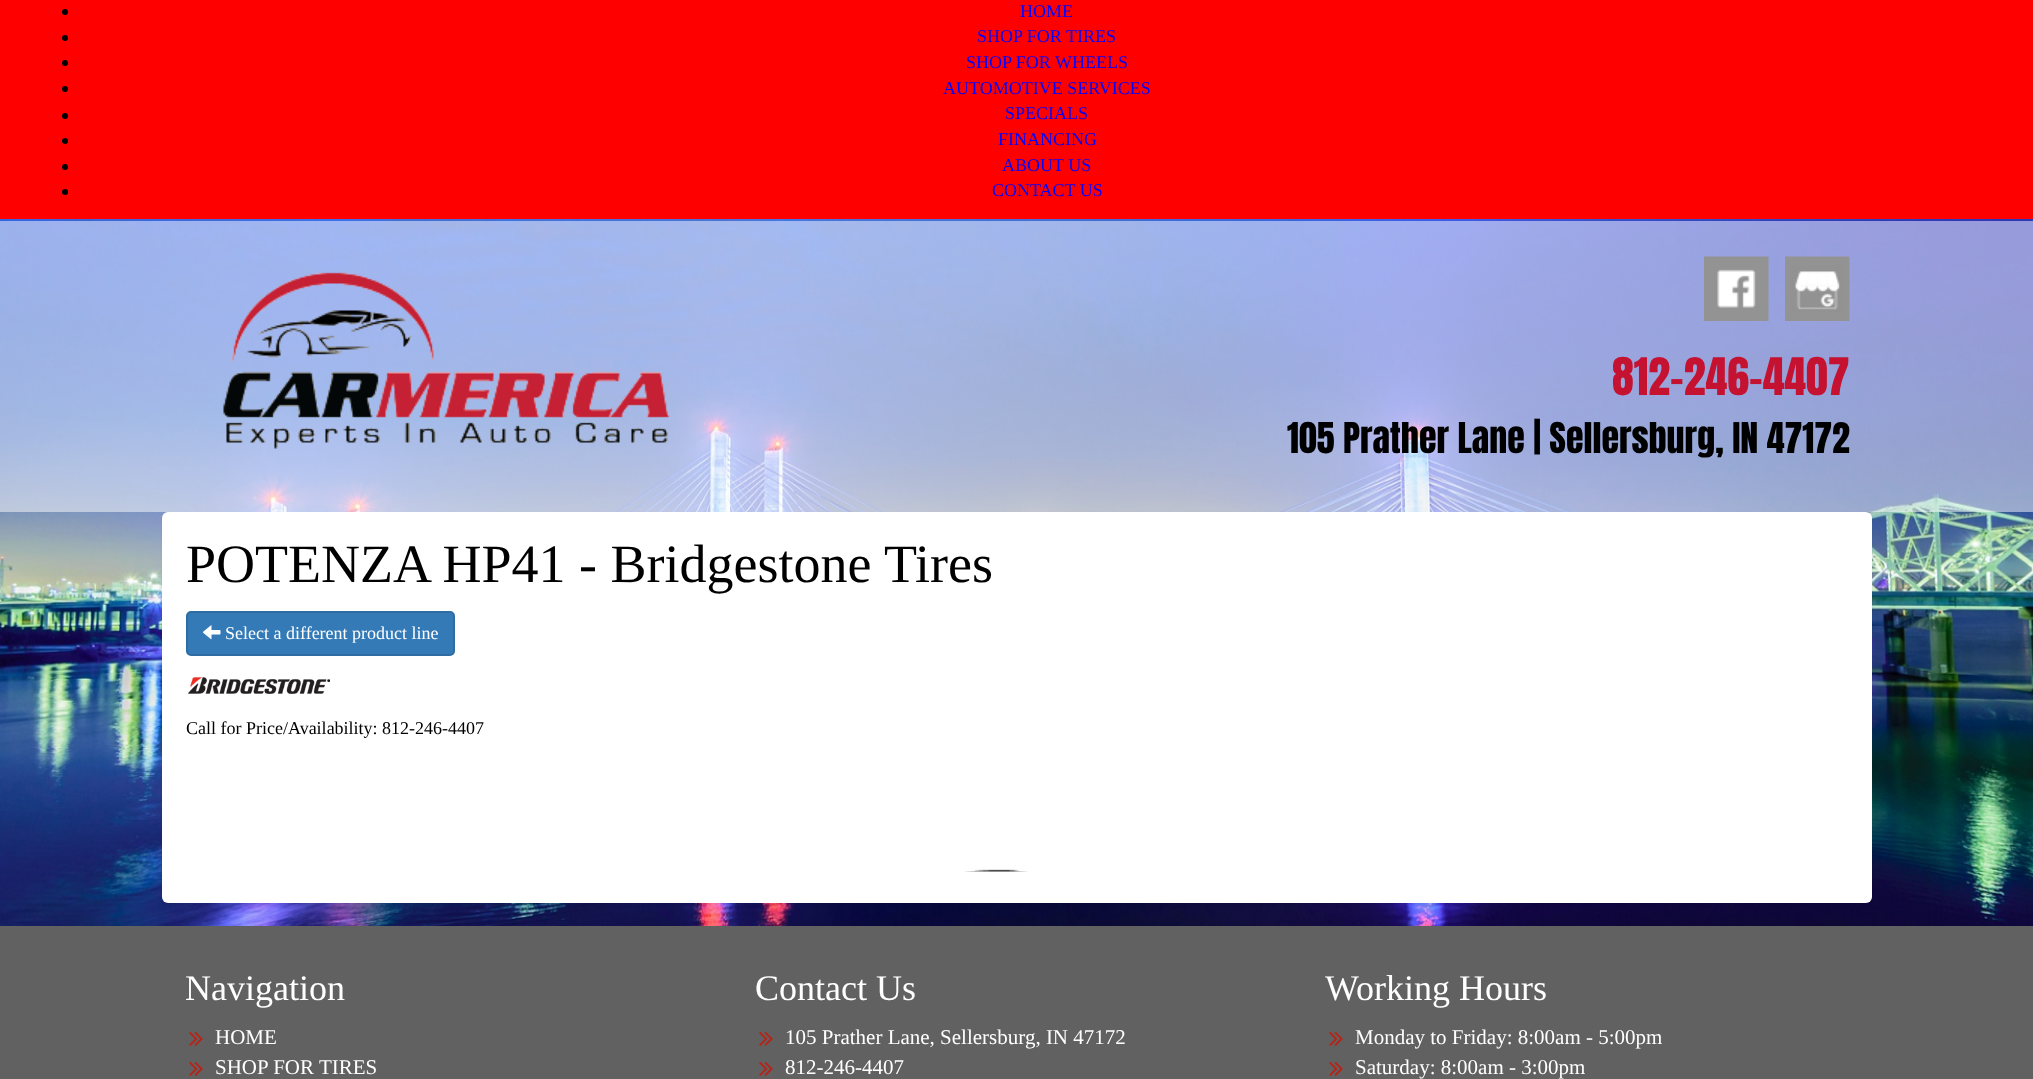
<svg xmlns="http://www.w3.org/2000/svg" width="2033" height="1079">
<rect width="100%" height="100%" fill="#fff"/>
<rect width="2033" height="219" fill="#f00"/>
<circle cx="65" cy="12" r="3" fill="#000"/>
<text x="1020" y="17" style="font-family:Liberation Serif;font-size:18px;fill:#00f">HOME</text>
<circle cx="65" cy="38" r="3" fill="#000"/>
<text x="977" y="42" style="font-family:Liberation Serif;font-size:18px;fill:#00f">SHOP FOR TIRES</text>
<circle cx="65" cy="63" r="3" fill="#000"/>
<text x="966" y="68" style="font-family:Liberation Serif;font-size:18px;fill:#00f">SHOP FOR WHEELS</text>
<circle cx="65" cy="89" r="3" fill="#000"/>
<text x="943" y="94" style="font-family:Liberation Serif;font-size:18px;fill:#00f">AUTOMOTIVE SERVICES</text>
<circle cx="65" cy="116" r="3" fill="#000"/>
<text x="1005" y="119" style="font-family:Liberation Serif;font-size:18px;fill:#00f">SPECIALS</text>
<circle cx="65" cy="141" r="3" fill="#000"/>
<text x="998" y="145" style="font-family:Liberation Serif;font-size:18px;fill:#00f">FINANCING</text>
<circle cx="65" cy="167" r="3" fill="#000"/>
<text x="1002" y="171" style="font-family:Liberation Serif;font-size:18px;fill:#00f">ABOUT US</text>
<circle cx="65" cy="192" r="3" fill="#000"/>
<text x="992" y="196" style="font-family:Liberation Serif;font-size:18px;fill:#00f">CONTACT US</text>
<image x="0" y="219" width="2033" height="707" href="media/1.png"/>
<rect y="221" width="2033" height="291" fill="#ffffff80"/>
<image x="223" y="272" width="447" height="177" href="media/2.png"/>
<image x="1704" y="256" width="65" height="65" href="media/3.png"/>
<image x="1785" y="256" width="65" height="65" href="media/4.png"/>
<text x="1612" y="395" style="font-family:Anton;font-size:44px;fill:#c41230">812-246-4407</text>
<text x="1287" y="453" style="font-family:Anton;font-size:36px;fill:#000">105 Prather Lane | Sellersburg, IN 47172</text>
<rect x="162" y="513" width="1710" height="392" rx="6" fill="#0000000d" filter="blur(1px)"/>
<rect x="162" y="512" width="1710" height="391" rx="6" fill="#fff"/>
<text x="186" y="582" style="font-family:Liberation Serif;font-size:54px;fill:#000">POTENZA HP41 - Bridgestone Tires</text>
<rect x="187" y="612" width="267" height="43" rx="4" fill="#337ab7" stroke="#2e6da4" stroke-width="2"/>
<image x="202" y="625" width="19" height="15" href="media/5.png"/>
<text x="225" y="639" style="font-family:Liberation Serif;font-size:18px;fill:#fff">Select a different product line</text>
<image x="188" y="677" width="142" height="17" href="media/6.png"/>
<text x="186" y="734" style="font-family:Liberation Serif;font-size:18px;fill:#000">Call for Price/Availability: 812-246-4407</text>
<image x="964" y="869" width="64" height="3" href="media/7.png"/>
<rect y="926" width="2033" height="153" fill="#616161"/>
<text x="185" y="1000" style="font-family:Liberation Serif;font-size:36px;fill:#fff">Navigation</text>
<image x="189" y="1032" width="14" height="14" href="media/8.png"/>
<text x="215" y="1044" style="font-family:Liberation Serif;font-size:21px;fill:#fff">HOME</text>
<image x="189" y="1062" width="14" height="14" href="media/8.png"/>
<text x="215" y="1074" style="font-family:Liberation Serif;font-size:21px;fill:#fff">SHOP FOR TIRES</text>
<text x="755" y="1000" style="font-family:Liberation Serif;font-size:36px;fill:#fff">Contact Us</text>
<image x="759" y="1032" width="14" height="14" href="media/8.png"/>
<text x="785" y="1044" style="font-family:Liberation Serif;font-size:21px;fill:#fff">105 Prather Lane, Sellersburg, IN 47172</text>
<image x="759" y="1062" width="14" height="14" href="media/8.png"/>
<text x="785" y="1074" style="font-family:Liberation Serif;font-size:21px;fill:#fff">812-246-4407</text>
<text x="1325" y="1000" style="font-family:Liberation Serif;font-size:36px;fill:#fff">Working Hours</text>
<image x="1329" y="1032" width="14" height="14" href="media/8.png"/>
<text x="1355" y="1044" style="font-family:Liberation Serif;font-size:21px;fill:#fff">Monday to Friday: 8:00am - 5:00pm</text>
<image x="1329" y="1062" width="14" height="14" href="media/8.png"/>
<text x="1355" y="1074" style="font-family:Liberation Serif;font-size:21px;fill:#fff">Saturday: 8:00am - 3:00pm</text>
</svg>
